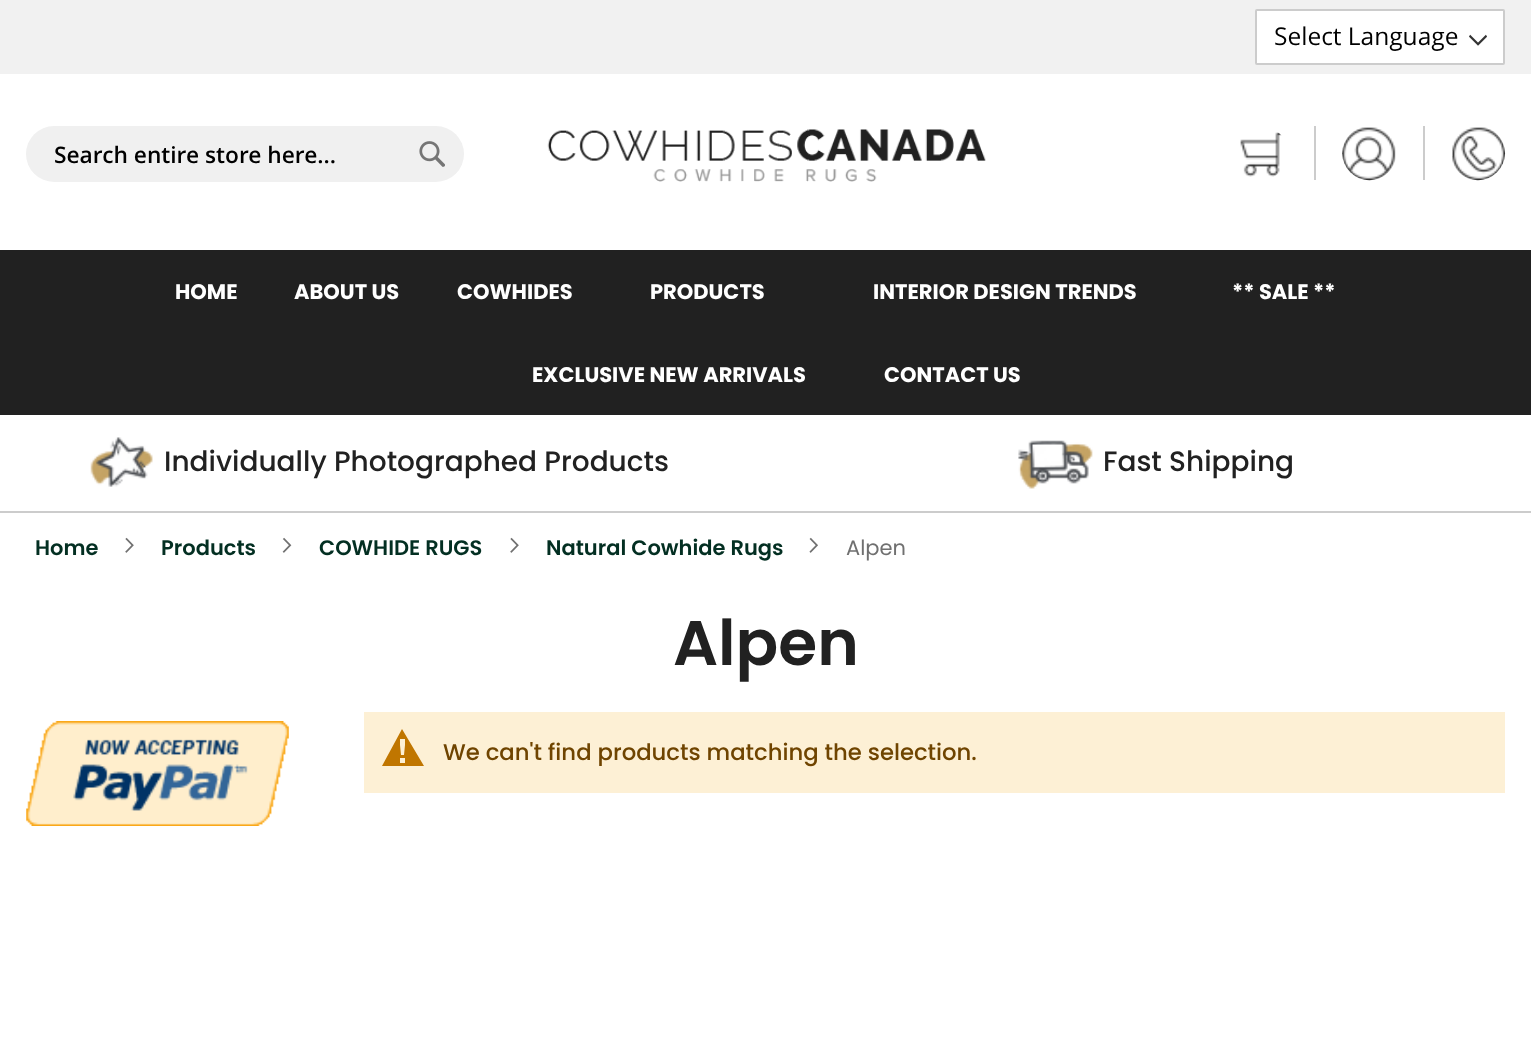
<svg xmlns="http://www.w3.org/2000/svg" width="1531" height="1050">
<rect width="100%" height="100%" fill="#fff"/>
<rect width="1531" height="74" fill="#f1f1f1"/>
<rect x="1257" y="11" width="246" height="52" fill="#fff"/>
<image x="1469" y="34" width="18" height="12" href="media/1.png"/>
<rect x="1256" y="10" width="248" height="54" rx="1" fill="none" stroke="#ccc" stroke-width="2"/>
<text x="1274" y="45" style="font-family:Open Sans;font-size:24.5px;fill:#000">Select Language</text>
<rect x="26" y="126" width="438" height="56" rx="28" fill="#f0f0f0"/>
<text x="54" y="163" style="font-family:Open Sans;font-size:22.75px;font-weight:600;fill:#000">Search entire store here...</text>
<image x="419" y="141" width="26" height="26" href="media/2.png"/>
<image x="547" y="129" width="439" height="53" href="media/3.png"/>
<image x="1240" y="132" width="42" height="45" href="media/4.png"/>
<rect x="1423" y="126" width="2" height="54" fill="#ccc"/>
<rect x="1314" y="126" width="2" height="54" fill="#ccc"/>
<image x="1342" y="127" width="54" height="54" href="media/5.png"/>
<image x="1452" y="127" width="54" height="54" href="media/6.png"/>
<rect y="250" width="1531" height="165" fill="#212121"/>
<text x="175" y="299" style="font-family:Poppins;font-size:21px;font-weight:bold;fill:#fff">HOME</text>
<text x="294" y="299" style="font-family:Poppins;font-size:21px;font-weight:bold;fill:#fff">ABOUT US</text>
<text x="457" y="299" style="font-family:Poppins;font-size:21px;font-weight:bold;fill:#fff">COWHIDES</text>
<text x="650" y="299" style="font-family:Poppins;font-size:21px;font-weight:bold;fill:#fff">PRODUCTS</text>
<text x="873" y="299" style="font-family:Poppins;font-size:21px;font-weight:bold;fill:#fff">INTERIOR DESIGN TRENDS</text>
<text x="1232" y="299" style="font-family:Poppins;font-size:21px;font-weight:bold;fill:#fff">** SALE **</text>
<text x="532" y="382" style="font-family:Poppins;font-size:21px;font-weight:bold;fill:#fff">EXCLUSIVE NEW ARRIVALS</text>
<text x="884" y="382" style="font-family:Poppins;font-size:21px;font-weight:bold;fill:#fff">CONTACT US</text>
<image x="90" y="437" width="63" height="50" href="media/7.png"/>
<text x="164" y="471" style="font-family:Poppins;font-size:28px;font-weight:500;fill:#212121">Individually Photographed Products</text>
<image x="1018" y="440" width="75" height="49" href="media/8.png"/>
<text x="1103" y="471" style="font-family:Poppins;font-size:28px;font-weight:500;fill:#212121">Fast Shipping</text>
<rect y="511" width="1531" height="2" fill="#ccc"/>
<text x="35" y="555" style="font-family:Poppins;font-size:21px;font-weight:600;fill:#032f22">Home</text>
<image x="125" y="537" width="9" height="16" href="media/9.png"/>
<text x="161" y="555" style="font-family:Poppins;font-size:21px;font-weight:600;fill:#032f22">Products</text>
<image x="282" y="537" width="10" height="16" href="media/10.png"/>
<text x="319" y="555" style="font-family:Poppins;font-size:21px;font-weight:600;fill:#032f22">COWHIDE RUGS</text>
<image x="510" y="537" width="9" height="16" href="media/9.png"/>
<text x="546" y="555" style="font-family:Poppins;font-size:21px;font-weight:600;fill:#032f22">Natural Cowhide Rugs</text>
<image x="809" y="537" width="9" height="16" href="media/11.png"/>
<text x="846" y="555" style="font-family:Poppins;font-size:21px;fill:#707070">Alpen</text>
<text x="673" y="665" style="font-family:Poppins;font-size:63px;font-weight:600;fill:#212121">Alpen</text>
<image x="26" y="721" width="263" height="105" href="media/12.png"/>
<rect x="364" y="712" width="1141" height="81" fill="#fdf0d5"/>
<path d="M402 729l-20 37h42zm3 10v6l-1 10h-3l-1-10v-6zm-5 24v-5h5v5z" fill="#c07600"/>
<text x="443" y="760" style="font-family:Poppins;font-size:22.75px;font-weight:500;fill:#6f4400">We can't find products matching the selection.</text>
</svg>
